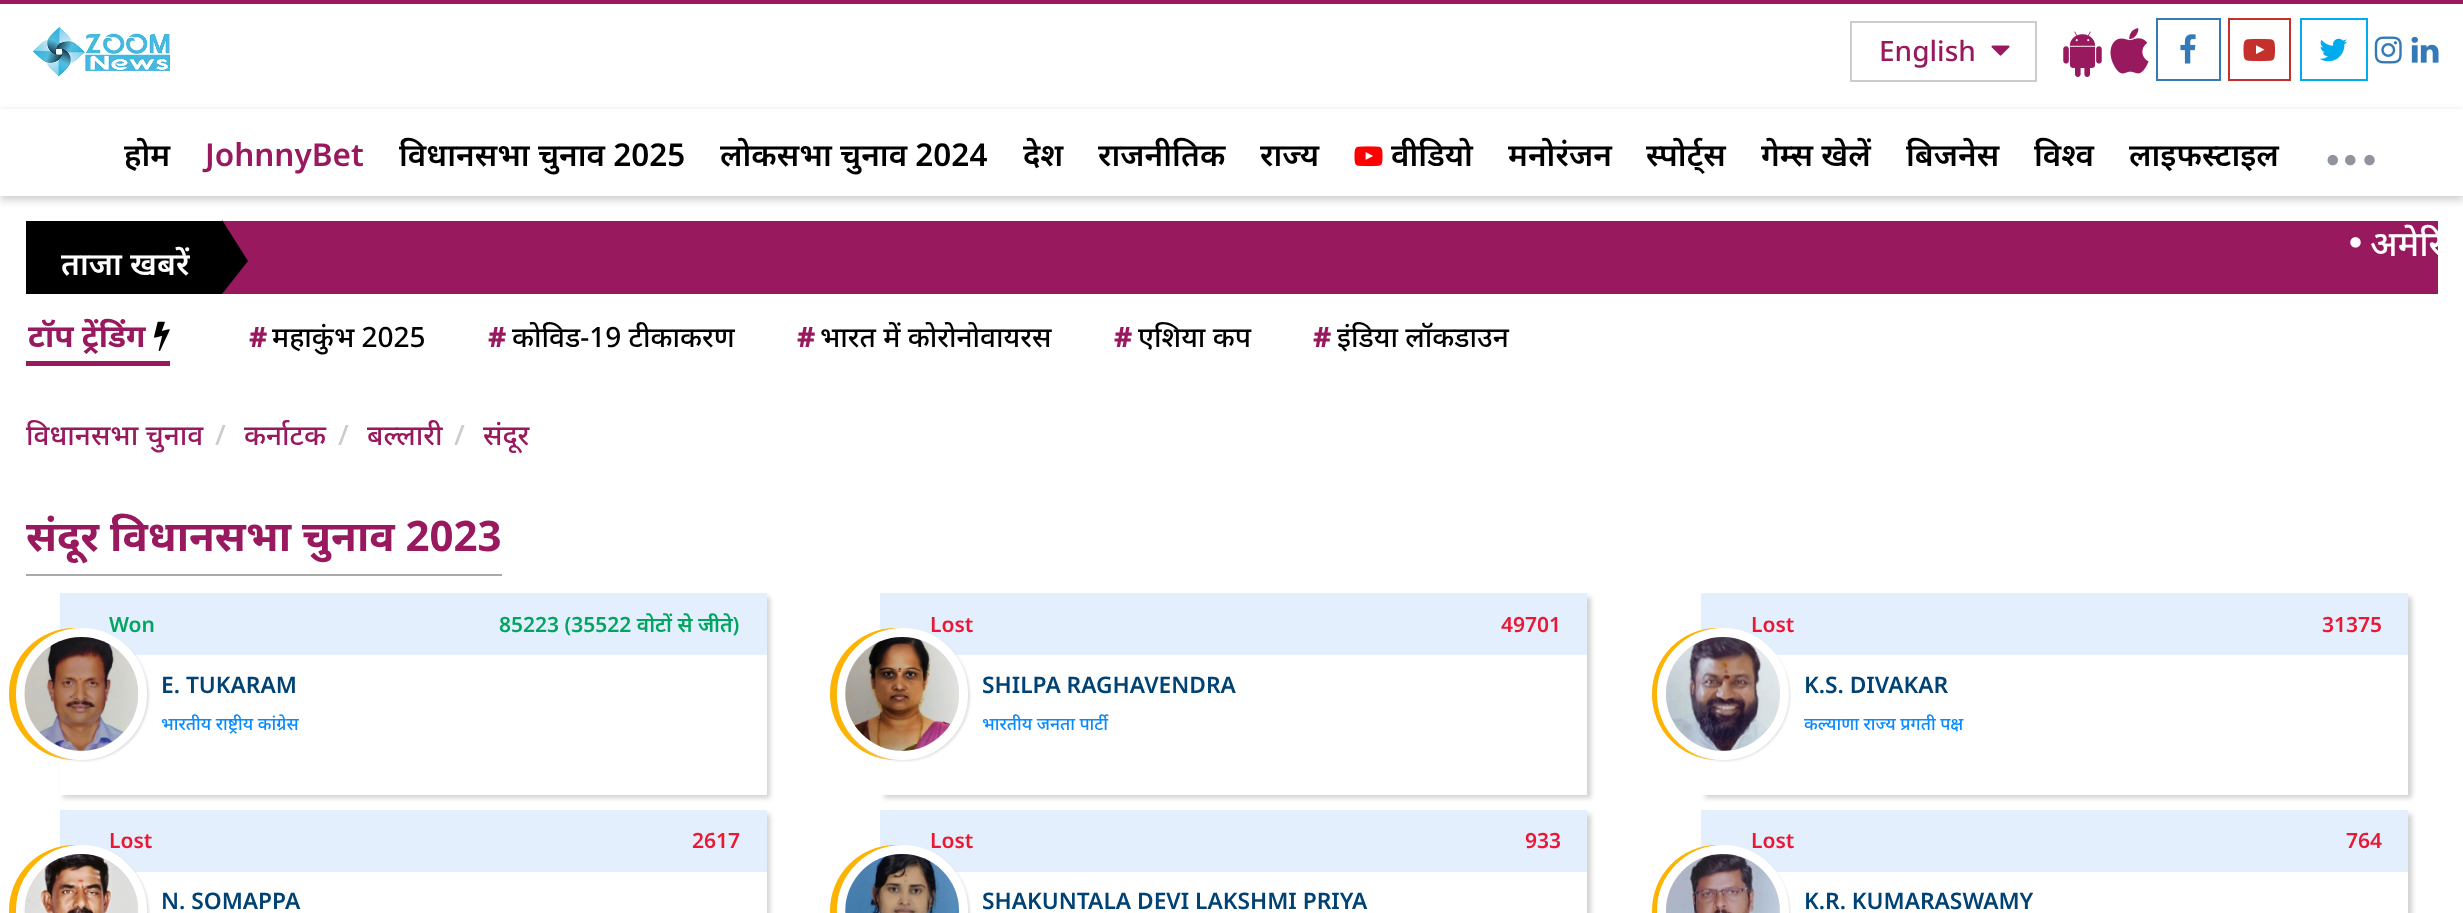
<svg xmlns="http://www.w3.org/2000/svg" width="2463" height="913">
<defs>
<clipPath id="clip1"><path d="M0 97h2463v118h-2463zm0 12h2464v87h-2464z" clip-rule="evenodd"/></clipPath>
<clipPath id="clip2"><rect x="26" y="221" width="2412" height="52"/></clipPath>
<clipPath id="clip3"><path d="M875 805h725v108h-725zm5 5h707v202h-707z" clip-rule="evenodd"/></clipPath>
<clipPath id="clip4"><path d="M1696 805h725v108h-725zm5 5h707v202h-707z" clip-rule="evenodd"/></clipPath>
</defs>
<rect width="100%" height="100%" fill="#fff"/>
<rect width="2463" height="4" fill="#99195f"/>
<image x="33" y="27" width="137" height="50" href="media/1.png"/>
<rect x="1851" y="22" width="185" height="59" fill="none" stroke="#ccc" stroke-width="2"/>
<text x="1879" y="61" style="font-family:Noto Sans;font-size:28px;font-weight:500;fill:#99195f">English</text>
<image x="1991" y="45" width="19" height="11" href="media/2.png"/>
<image x="2063" y="31" width="39" height="46" href="media/3.png"/>
<image x="2110" y="28" width="39" height="46" href="media/4.png"/>
<rect x="2157" y="19" width="63" height="61" fill="none" stroke="#337ab7" stroke-width="2"/>
<image x="2180" y="34" width="16" height="30" href="media/5.png"/>
<rect x="2229" y="19" width="61" height="61" fill="none" stroke="#c4302b" stroke-width="2"/>
<image x="2243" y="38" width="32" height="24" href="media/6.png"/>
<rect x="2301" y="19" width="66" height="61" fill="none" stroke="#00acee" stroke-width="2"/>
<image x="2319" y="38" width="29" height="24" href="media/7.png"/>
<image x="2374" y="36" width="28" height="28" href="media/8.png"/>
<image x="2411" y="36" width="28" height="27" href="media/9.png"/>
<g clip-path="url(#clip1)">
<rect y="112" width="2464" height="88" fill="#5858584d" filter="blur(4.5px)"/>
</g>
<text x="124" y="166" style="font-family:Noto Sans;font-size:31.5px;font-weight:600;fill:#000">होम</text>
<text x="205" y="166" style="font-family:Noto Sans;font-size:31.5px;font-weight:600;fill:#99195f">JohnnyBet</text>
<text x="399" y="166" style="font-family:Noto Sans;font-size:31.5px;font-weight:600;fill:#000">विधानसभा चुनाव 2025</text>
<text x="720" y="166" style="font-family:Noto Sans;font-size:31.5px;font-weight:600;fill:#000">लोकसभा चुनाव 2024</text>
<text x="1023" y="166" style="font-family:Noto Sans;font-size:31.5px;font-weight:600;fill:#000">देश</text>
<text x="1098" y="166" style="font-family:Noto Sans;font-size:31.5px;font-weight:600;fill:#000">राजनीतिक</text>
<text x="1260" y="166" style="font-family:Noto Sans;font-size:31.5px;font-weight:600;fill:#000">राज्य</text>
<image x="1354" y="146" width="29" height="21" href="media/10.png"/>
<text x="1391" y="166" style="font-family:Noto Sans;font-size:31.5px;font-weight:600;fill:#000">वीडियो</text>
<text x="1508" y="166" style="font-family:Noto Sans;font-size:31.5px;font-weight:600;fill:#000">मनोरंजन</text>
<text x="1646" y="166" style="font-family:Noto Sans;font-size:31.5px;font-weight:600;fill:#000">स्पोर्ट्स</text>
<text x="1761" y="166" style="font-family:Noto Sans;font-size:31.5px;font-weight:600;fill:#000">गेम्स खेलें</text>
<text x="1906" y="166" style="font-family:Noto Sans;font-size:31.5px;font-weight:600;fill:#000">बिजनेस</text>
<text x="2034" y="166" style="font-family:Noto Sans;font-size:31.5px;font-weight:600;fill:#000">विश्व</text>
<text x="2129" y="166" style="font-family:Noto Sans;font-size:31.5px;font-weight:600;fill:#000">लाइफस्टाइल</text>
<image x="2327" y="154" width="11" height="12" href="media/11.png"/>
<image x="2345" y="154" width="11" height="12" href="media/12.png"/>
<image x="2364" y="154" width="11" height="12" href="media/13.png"/>
<rect x="222" y="221" width="2216" height="73" fill="#99195f"/>
<image x="2350" y="237" width="11" height="11" href="media/14.png"/>
<g clip-path="url(#clip2)">
<text x="2370" y="256" style="font-family:Noto Sans;font-size:35px;font-weight:500;fill:#fff">अमेरि</text>
</g>
<rect x="26" y="221" width="196" height="73" fill="#000"/>
<text x="61" y="275" style="font-family:Noto Sans;font-size:31.5px;font-weight:600;fill:#fff">ताजा खबरें</text>
<path d="M222 294v-74l26 41z" fill="#000"/>
<rect x="26" y="361" width="144" height="5" fill="#99195f"/>
<text x="28" y="347" style="font-family:Noto Sans;font-size:31.5px;font-weight:bold;fill:#99195f">टॉप ट्रेंडिंग</text>
<image x="154" y="321" width="16" height="30" href="media/15.png"/>
<text x="249" y="347" style="font-family:Noto Sans;font-size:28px;font-weight:800;fill:#99195f">#</text>
<text x="272" y="347" style="font-family:Noto Sans;font-size:28px;font-weight:500;fill:#000">महाकुंभ 2025</text>
<text x="488" y="347" style="font-family:Noto Sans;font-size:28px;font-weight:800;fill:#99195f">#</text>
<text x="512" y="347" style="font-family:Noto Sans;font-size:28px;font-weight:500;fill:#000">कोविड-19 टीकाकरण</text>
<text x="797" y="347" style="font-family:Noto Sans;font-size:28px;font-weight:800;fill:#99195f">#</text>
<text x="820" y="347" style="font-family:Noto Sans;font-size:28px;font-weight:500;fill:#000">भारत में कोरोनोवायरस</text>
<text x="1114" y="347" style="font-family:Noto Sans;font-size:28px;font-weight:800;fill:#99195f">#</text>
<text x="1138" y="347" style="font-family:Noto Sans;font-size:28px;font-weight:500;fill:#000">एशिया कप</text>
<text x="1313" y="347" style="font-family:Noto Sans;font-size:28px;font-weight:800;fill:#99195f">#</text>
<text x="1337" y="347" style="font-family:Noto Sans;font-size:28px;font-weight:500;fill:#000">इंडिया लॉकडाउन</text>
<text x="26" y="445" style="font-family:Noto Sans;font-size:28px;font-weight:500;fill:#99195f">विधानसभा चुनाव</text>
<text x="215" y="445" style="font-family:Noto Sans;font-size:28px;font-weight:500;fill:#ccc">/</text>
<text x="244" y="445" style="font-family:Noto Sans;font-size:28px;font-weight:500;fill:#99195f">कर्नाटक</text>
<text x="338" y="445" style="font-family:Noto Sans;font-size:28px;font-weight:500;fill:#ccc">/</text>
<text x="367" y="445" style="font-family:Noto Sans;font-size:28px;font-weight:500;fill:#99195f">बल्लारी</text>
<text x="454" y="445" style="font-family:Noto Sans;font-size:28px;font-weight:500;fill:#ccc">/</text>
<text x="483" y="445" style="font-family:Noto Sans;font-size:28px;font-weight:500;fill:#99195f">संदूर</text>
<rect x="26" y="574" width="476" height="2" fill="#a9a9a9"/>
<text x="26" y="551" style="font-family:Noto Sans;font-size:42px;font-weight:bold;fill:#99195f">संदूर विधानसभा चुनाव 2023</text>
<rect x="63" y="597" width="707" height="201" fill="#d2d2d2" filter="blur(2.5px)"/>
<rect x="60" y="655" width="707" height="140" fill="#fff"/>
<rect x="60" y="593" width="707" height="62" fill="#e3effd"/>
<text x="109" y="632" style="font-family:Noto Sans;font-size:21px;font-weight:600;fill:#02a560">Won</text>
<rect x="9" y="628" width="131" height="132" rx="65.5" fill="#fdb302"/>
<rect x="18" y="630" width="131" height="131" rx="65.5" fill="#e1e1e1" filter="blur(1px)"/>
<rect x="20.5" y="632.5" width="122" height="123" rx="61" fill="none" stroke="#fff" stroke-width="9"/>
<image x="24" y="637" width="115" height="114" href="media/16.png"/>
<text x="499" y="632" style="font-family:Noto Sans;font-size:21px;font-weight:600;fill:#02a560">85223 (35522 वोटों से जीते)</text>
<text x="161" y="693" style="font-family:Noto Sans;font-size:22.75px;font-weight:600;fill:#004274">E. TUKARAM</text>
<text x="161" y="730" style="font-family:Noto Sans;font-size:17.5px;font-weight:500;fill:#0a8bfd">भारतीय राष्ट्रीय कांग्रेस</text>
<rect x="884" y="597" width="707" height="201" fill="#d2d2d2" filter="blur(2.5px)"/>
<rect x="880" y="655" width="707" height="140" fill="#fff"/>
<rect x="880" y="593" width="707" height="62" fill="#e3effd"/>
<text x="930" y="632" style="font-family:Noto Sans;font-size:21px;font-weight:600;fill:#ea1835">Lost</text>
<rect x="830" y="628" width="131" height="132" rx="65.5" fill="#fdb302"/>
<rect x="838" y="630" width="132" height="131" rx="65.5" fill="#e1e1e1" filter="blur(1px)"/>
<rect x="841.5" y="632.5" width="122" height="123" rx="61" fill="none" stroke="#fff" stroke-width="9"/>
<image x="845" y="637" width="114" height="114" href="media/17.png"/>
<text x="1501" y="632" style="font-family:Noto Sans;font-size:21px;font-weight:600;fill:#ea1835">49701</text>
<text x="982" y="693" style="font-family:Noto Sans;font-size:22.75px;font-weight:600;fill:#004274">SHILPA RAGHAVENDRA</text>
<text x="982" y="730" style="font-family:Noto Sans;font-size:17.5px;font-weight:500;fill:#0a8bfd">भारतीय जनता पार्टी</text>
<rect x="1705" y="597" width="707" height="201" fill="#d2d2d2" filter="blur(2.5px)"/>
<rect x="1701" y="655" width="707" height="140" fill="#fff"/>
<rect x="1701" y="593" width="707" height="62" fill="#e3effd"/>
<text x="1751" y="632" style="font-family:Noto Sans;font-size:21px;font-weight:600;fill:#ea1835">Lost</text>
<rect x="1652" y="628" width="131" height="132" rx="65.5" fill="#fdb302"/>
<rect x="1659" y="630" width="131" height="131" rx="65.5" fill="#e1e1e1" filter="blur(1px)"/>
<circle cx="1723" cy="694" r="61.5" fill="none" stroke="#fff" stroke-width="9"/>
<image x="1666" y="637" width="114" height="114" href="media/18.png"/>
<text x="2322" y="632" style="font-family:Noto Sans;font-size:21px;font-weight:600;fill:#ea1835">31375</text>
<text x="1804" y="693" style="font-family:Noto Sans;font-size:22.75px;font-weight:600;fill:#004274">K.S. DIVAKAR</text>
<text x="1804" y="730" style="font-family:Noto Sans;font-size:17.5px;font-weight:500;fill:#0a8bfd">कल्याणा राज्य प्रगती पक्ष</text>
<rect x="63" y="814" width="707" height="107" fill="#d2d2d2" filter="blur(2.5px)"/>
<rect x="134" y="872" width="633" height="41" fill="#fff"/>
<rect x="60" y="810" width="707" height="62" fill="#e3effd"/>
<text x="109" y="848" style="font-family:Noto Sans;font-size:21px;font-weight:600;fill:#ea1835">Lost</text>
<rect x="9" y="845" width="131" height="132" rx="65.5" fill="#fdb302"/>
<rect x="18" y="847" width="131" height="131" rx="65.5" fill="#e1e1e1" filter="blur(1px)"/>
<rect x="20.5" y="849.5" width="122" height="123" rx="61" fill="none" stroke="#fff" stroke-width="9"/>
<image x="24" y="854" width="115" height="59" href="media/19.png"/>
<text x="692" y="848" style="font-family:Noto Sans;font-size:21px;font-weight:600;fill:#ea1835">2617</text>
<text x="161" y="909" style="font-family:Noto Sans;font-size:22.75px;font-weight:600;fill:#004274">N. SOMAPPA</text>
<g clip-path="url(#clip3)">
<rect x="884" y="814" width="707" height="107" fill="#d2d2d2" filter="blur(2.5px)"/>
</g>
<rect x="880" y="810" width="707" height="62" fill="#e3effd"/>
<text x="930" y="848" style="font-family:Noto Sans;font-size:21px;font-weight:600;fill:#ea1835">Lost</text>
<rect x="830" y="845" width="131" height="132" rx="65.5" fill="#fdb302"/>
<rect x="838" y="847" width="132" height="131" rx="65.5" fill="#e1e1e1" filter="blur(1px)"/>
<rect x="841.5" y="849.5" width="122" height="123" rx="61" fill="none" stroke="#fff" stroke-width="9"/>
<image x="845" y="854" width="114" height="59" href="media/20.png"/>
<text x="1525" y="848" style="font-family:Noto Sans;font-size:21px;font-weight:600;fill:#ea1835">933</text>
<text x="982" y="909" style="font-family:Noto Sans;font-size:22.75px;font-weight:600;fill:#004274">SHAKUNTALA DEVI LAKSHMI PRIYA</text>
<g clip-path="url(#clip4)">
<rect x="1705" y="814" width="707" height="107" fill="#d2d2d2" filter="blur(2.5px)"/>
</g>
<rect x="1701" y="810" width="707" height="62" fill="#e3effd"/>
<text x="1751" y="848" style="font-family:Noto Sans;font-size:21px;font-weight:600;fill:#ea1835">Lost</text>
<rect x="1652" y="845" width="131" height="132" rx="65.5" fill="#fdb302"/>
<rect x="1659" y="847" width="131" height="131" rx="65.5" fill="#e1e1e1" filter="blur(1px)"/>
<circle cx="1723" cy="911" r="61.5" fill="none" stroke="#fff" stroke-width="9"/>
<image x="1666" y="854" width="114" height="59" href="media/21.png"/>
<text x="2346" y="848" style="font-family:Noto Sans;font-size:21px;font-weight:600;fill:#ea1835">764</text>
<text x="1804" y="909" style="font-family:Noto Sans;font-size:22.75px;font-weight:600;fill:#004274">K.R. KUMARASWAMY</text>
</svg>
